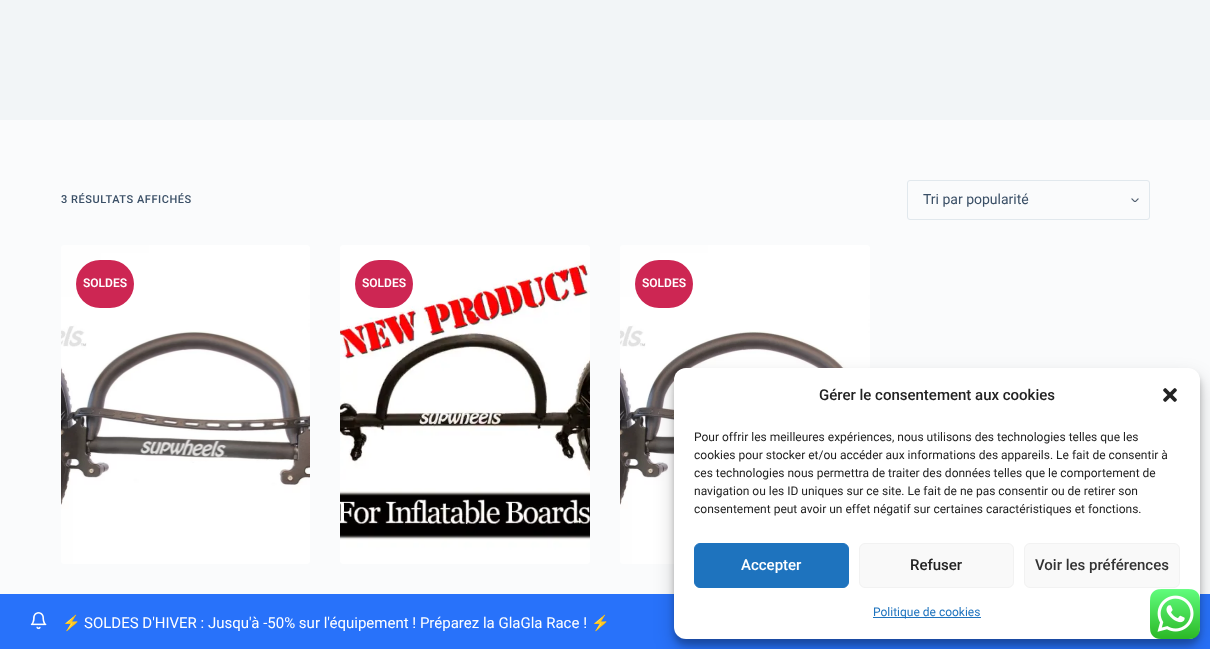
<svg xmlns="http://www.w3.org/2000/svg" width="1210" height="649">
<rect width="100%" height="100%" fill="#fafbfc"/>
<rect width="1210" height="120" fill="#f2f5f7"/>
<text x="61" y="203" style="font-family:Roboto;font-size:11px;font-weight:500;letter-spacing:0.55px;fill:#3a4f66">3 RÉSULTATS AFFICHÉS</text>
<image x="1131" y="198" width="8" height="4" href="media/1.png"/>
<rect x="907.5" y="180.5" width="242" height="39" rx="2.5" fill="none" stroke="#e1e8ed"/>
<text x="923" y="204" style="font-family:Roboto;font-size:14px;fill:#3a4f66">Tri par popularité</text>
<image x="61" y="245" width="249" height="319" href="media/2.png"/>
<rect x="76" y="260" width="58" height="48" rx="24" fill="#cd2653"/>
<text x="83" y="287" style="font-family:Roboto;font-size:12px;font-weight:600;fill:#fff">SOLDES</text>
<image x="340" y="245" width="250" height="319" href="media/3.png"/>
<rect x="355" y="260" width="58" height="48" rx="24" fill="#cd2653"/>
<text x="362" y="287" style="font-family:Roboto;font-size:12px;font-weight:600;fill:#fff">SOLDES</text>
<image x="620" y="245" width="250" height="319" href="media/4.png"/>
<rect x="635" y="260" width="58" height="48" rx="24" fill="#cd2653"/>
<text x="642" y="287" style="font-family:Roboto;font-size:12px;font-weight:600;fill:#fff">SOLDES</text>
<rect y="594" width="1210" height="55" fill="#2872fa"/>
<image x="30" y="612" width="17" height="18" href="media/5.png"/>
<text x="62" y="628" style="font-family:Noto Color Emoji;font-size:15px;fill:#fff">⚡️</text>
<text x="84" y="628" style="font-family:Roboto;font-size:15px;fill:#fff">SOLDES D'HIVER : Jusqu'à -50% sur l'équipement ! Préparez la GlaGla Race !</text>
<text x="591" y="628" style="font-family:Noto Color Emoji;font-size:15px;fill:#fff">⚡️</text>
<rect x="674" y="374" width="526" height="271" rx="12" fill="#0000003b" filter="blur(3px)"/>
<rect x="674" y="378" width="526" height="271" rx="12" fill="#00000030" filter="blur(10px)"/>
<rect x="674" y="368" width="526" height="271" rx="12" fill="#fff"/>
<text x="819" y="400" style="font-family:Roboto;font-size:15px;font-weight:500;fill:#222">Gérer le consentement aux cookies</text>
<image x="1163" y="388" width="14" height="14" href="media/6.png"/>
<text x="694" y="441" style="font-family:Roboto;font-size:12px;fill:#222">Pour offrir les meilleures expériences, nous utilisons des technologies telles que les</text>
<text x="694" y="459" style="font-family:Roboto;font-size:12px;fill:#222">cookies pour stocker et/ou accéder aux informations des appareils. Le fait de consentir à</text>
<text x="694" y="477" style="font-family:Roboto;font-size:12px;fill:#222">ces technologies nous permettra de traiter des données telles que le comportement de</text>
<text x="694" y="495" style="font-family:Roboto;font-size:12px;fill:#222">navigation ou les ID uniques sur ce site. Le fait de ne pas consentir ou de retirer son</text>
<text x="694" y="513" style="font-family:Roboto;font-size:12px;fill:#222">consentement peut avoir un effet négatif sur certaines caractéristiques et fonctions.</text>
<rect x="694.5" y="543.5" width="154" height="44" rx="5.5" fill="#1e73be" stroke="#1e73be"/>
<text x="741" y="570" style="font-family:Roboto;font-size:15px;font-weight:500;fill:#fff">Accepter</text>
<rect x="859.5" y="543.5" width="154" height="44" rx="5.5" fill="#f9f9f9" stroke="#f2f2f2"/>
<text x="910" y="570" style="font-family:Roboto;font-size:15px;font-weight:500;fill:#222">Refuser</text>
<rect x="1024.5" y="543.5" width="155" height="44" rx="5.5" fill="#f9f9f9" stroke="#f2f2f2"/>
<text x="1035" y="570" style="font-family:Roboto;font-size:15px;font-weight:500;fill:#333">Voir les préférences</text>
<rect x="873" y="617" width="108" height="1" fill="#1e73be"/>
<text x="873" y="616" style="font-family:Roboto;font-size:12px;fill:#1e73be">Politique de cookies</text>
<image x="1150" y="589" width="50" height="50" href="media/7.png"/>
</svg>
